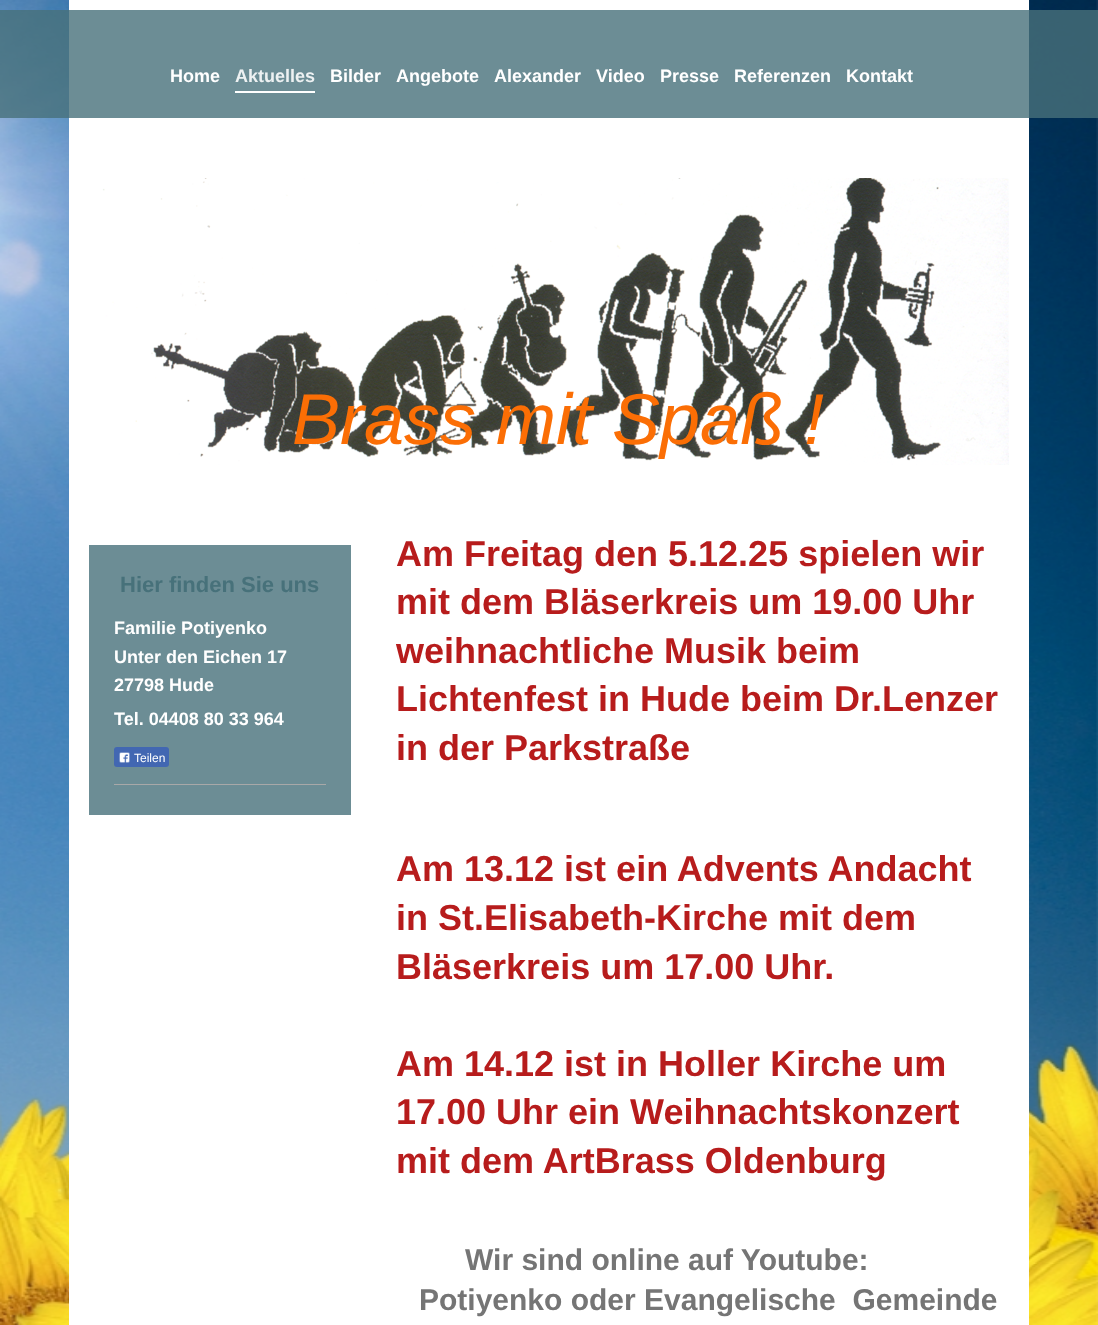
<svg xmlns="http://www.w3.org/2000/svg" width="1098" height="1325">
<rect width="100%" height="100%" fill="#fff"/>
<image x="0" y="0" width="1098" height="1325" href="media/1.png"/>
<rect x="69" width="960" height="1325" fill="#fff"/>
<rect y="10" width="1098" height="108" fill="#47717acc"/>
<text x="170" y="82" style="font-family:Liberation Sans;font-size:18px;font-weight:bold;fill:#fff">Home</text>
<rect x="235" y="91" width="80" height="2" fill="#fff"/>
<text x="235" y="82" style="font-family:Liberation Sans;font-size:18px;font-weight:bold;fill:#edf1f2">Aktuelles</text>
<text x="330" y="82" style="font-family:Liberation Sans;font-size:18px;font-weight:bold;fill:#fff">Bilder</text>
<text x="396" y="82" style="font-family:Liberation Sans;font-size:18px;font-weight:bold;fill:#fff">Angebote</text>
<text x="494" y="82" style="font-family:Liberation Sans;font-size:18px;font-weight:bold;fill:#fff">Alexander</text>
<text x="596" y="82" style="font-family:Liberation Sans;font-size:18px;font-weight:bold;fill:#fff">Video</text>
<text x="660" y="82" style="font-family:Liberation Sans;font-size:18px;font-weight:bold;fill:#fff">Presse</text>
<text x="734" y="82" style="font-family:Liberation Sans;font-size:18px;font-weight:bold;fill:#fff">Referenzen</text>
<text x="846" y="82" style="font-family:Liberation Sans;font-size:18px;font-weight:bold;fill:#fff">Kontakt</text>
<image x="89" y="178" width="920" height="287" href="media/2.png"/>
<text x="292" y="444" style="font-family:Liberation Sans;font-size:72px;font-style:italic;fill:#fb6e05">Brass mit Spaß !</text>
<rect x="89" y="545" width="262" height="270" fill="#6c8d95"/>
<text x="120" y="592" style="font-family:Liberation Sans;font-size:22px;font-weight:bold;fill:#47717a">Hier finden Sie uns</text>
<text x="114" y="634" style="font-family:Liberation Sans;font-size:18px;font-weight:bold;fill:#fff">Familie Potiyenko</text>
<text x="114" y="663" style="font-family:Liberation Sans;font-size:18px;font-weight:bold;fill:#fff">Unter den Eichen 17</text>
<text x="114" y="691" style="font-family:Liberation Sans;font-size:18px;font-weight:bold;fill:#fff">27798 Hude</text>
<text x="114" y="725" style="font-family:Liberation Sans;font-size:18px;font-weight:bold;fill:#fff">Tel. 04408 80 33 964</text>
<rect x="114" y="747" width="55" height="20" rx="3" fill="#4267b2"/>
<image x="119" y="752" width="11" height="11" href="media/3.png"/>
<text x="134" y="762" style="font-family:Liberation Sans;font-size:12px;fill:#fff">Teilen</text>
<rect x="114" y="784" width="212" height="1" fill="#a8a8a8"/>
<text x="396" y="566" style="font-family:Liberation Sans;font-size:36px;font-weight:bold;fill:#b71c1c">Am Freitag den 5.12.25 spielen wir</text>
<text x="396" y="614" style="font-family:Liberation Sans;font-size:36px;font-weight:bold;fill:#b71c1c">mit dem Bläserkreis um 19.00 Uhr</text>
<text x="396" y="663" style="font-family:Liberation Sans;font-size:36px;font-weight:bold;fill:#b71c1c">weihnachtliche Musik beim</text>
<text x="396" y="711" style="font-family:Liberation Sans;font-size:36px;font-weight:bold;fill:#b71c1c">Lichtenfest in Hude beim Dr.Lenzer</text>
<text x="396" y="760" style="font-family:Liberation Sans;font-size:36px;font-weight:bold;fill:#b71c1c">in der Parkstraße</text>
<text x="396" y="881" style="font-family:Liberation Sans;font-size:36px;font-weight:bold;fill:#b71c1c">Am 13.12 ist ein Advents Andacht</text>
<text x="396" y="930" style="font-family:Liberation Sans;font-size:36px;font-weight:bold;fill:#b71c1c">in St.Elisabeth-Kirche mit dem</text>
<text x="396" y="979" style="font-family:Liberation Sans;font-size:36px;font-weight:bold;fill:#b71c1c">Bläserkreis um 17.00 Uhr.</text>
<text x="396" y="1076" style="font-family:Liberation Sans;font-size:36px;font-weight:bold;fill:#b71c1c">Am 14.12 ist in Holler Kirche um</text>
<text x="396" y="1124" style="font-family:Liberation Sans;font-size:36px;font-weight:bold;fill:#b71c1c">17.00 Uhr ein Weihnachtskonzert</text>
<text x="396" y="1173" style="font-family:Liberation Sans;font-size:36px;font-weight:bold;fill:#b71c1c">mit dem ArtBrass Oldenburg</text>
<text x="465" y="1270" style="font-family:Liberation Sans;font-size:30px;font-weight:bold;fill:#757575">Wir sind online auf Youtube:</text>
<text x="419" y="1310" style="font-family:Liberation Sans;font-size:30px;font-weight:bold;fill:#757575" xml:space="preserve">Potiyenko oder Evangelische  Gemeinde</text>
</svg>
